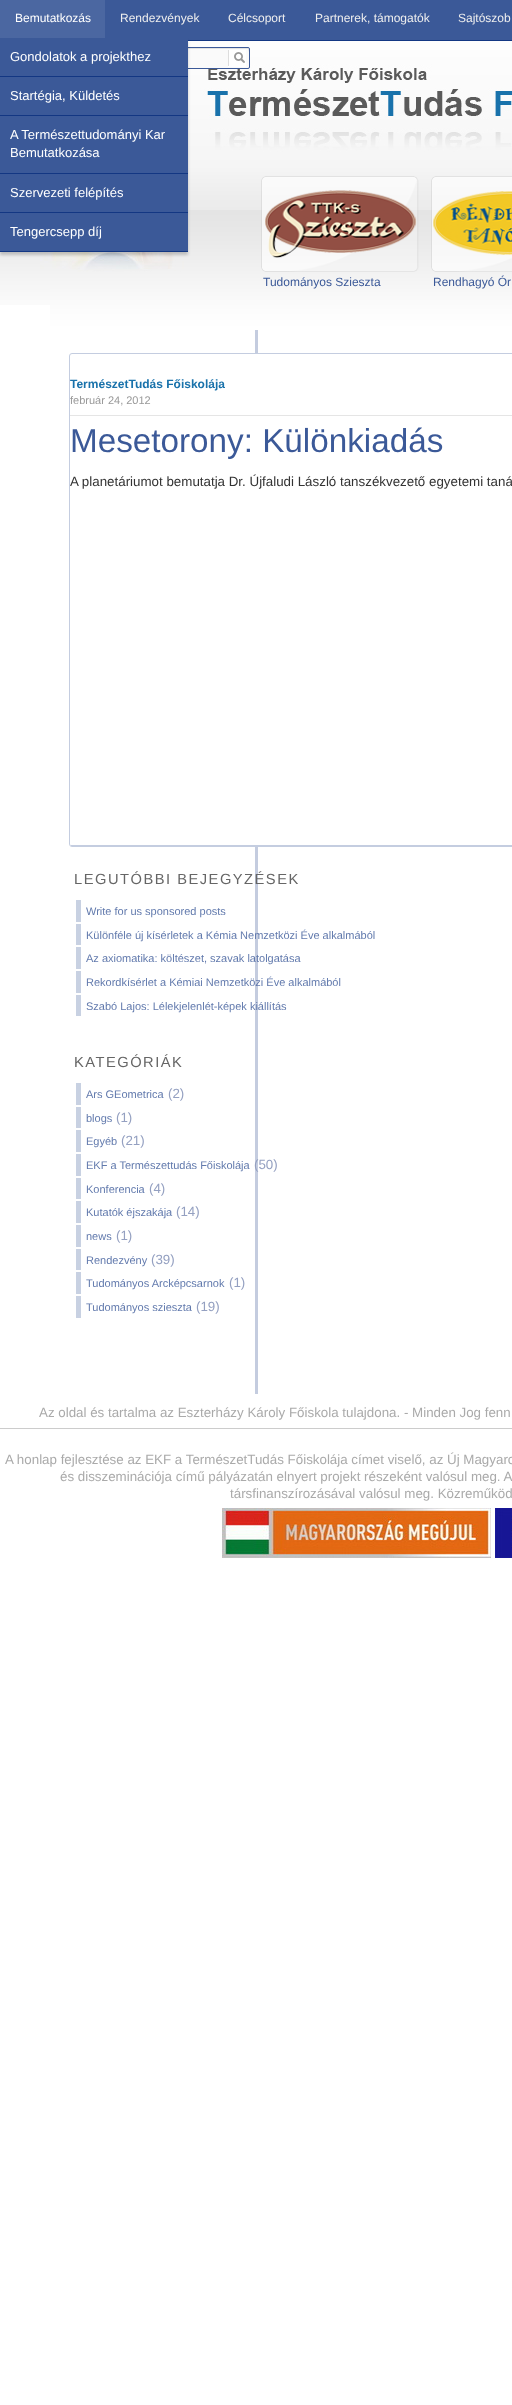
<svg xmlns="http://www.w3.org/2000/svg" width="512" height="2405">
<rect width="100%" height="100%" fill="#fff"/>
<image x="0" y="252" width="50" height="53" href="media/1.png"/>
<rect x="105" width="407" height="40" fill="#3b5998"/>
<rect x="188" y="40" width="324" height="1" fill="#133783"/>
<rect width="105" height="38" fill="#4b67a1"/>
<text x="15" y="22" style="font-family:Liberation Sans;font-size:12px;fill:#fff">Bemutatkozás</text>
<image x="50" y="41" width="462" height="289" href="media/3.png"/>
<rect y="47" width="250" height="22" rx="2" fill="#fafafa"/>
<path d="M2 49h246l1 3c0-1 1-3-1-4h-246c-1 0-1 2-1 2z" fill="#e1e1e1"/>
<rect x="0.5" y="47.5" width="249" height="21" rx="1.5" fill="none" stroke="#3b5998"/>
<image x="40" y="252" width="144" height="18" href="media/4.png"/>
<rect y="41" width="188" height="214" fill="#00000033" filter="blur(1.5px)"/>
<rect y="38" width="188" height="38" fill="#3b5998"/>
<rect y="76" width="188" height="1" fill="#133783"/>
<text x="10" y="61" style="font-family:Liberation Sans;font-size:13px;fill:#fff">Gondolatok a projekthez</text>
<rect y="77" width="188" height="38" fill="#3b5998"/>
<rect y="115" width="188" height="1" fill="#133783"/>
<text x="10" y="100" style="font-family:Liberation Sans;font-size:13px;fill:#fff">Startégia, Küldetés</text>
<rect y="116" width="188" height="57" fill="#3b5998"/>
<rect y="173" width="188" height="1" fill="#133783"/>
<text x="10" y="139" style="font-family:Liberation Sans;font-size:13px;fill:#fff">A Természettudományi Kar</text>
<text x="10" y="157" style="font-family:Liberation Sans;font-size:13px;fill:#fff">Bemutatkozása</text>
<rect y="174" width="188" height="38" fill="#3b5998"/>
<rect y="212" width="188" height="1" fill="#133783"/>
<text x="10" y="197" style="font-family:Liberation Sans;font-size:13px;fill:#fff">Szervezeti felépítés</text>
<rect y="213" width="188" height="38" fill="#3b5998"/>
<rect y="251" width="188" height="1" fill="#133783"/>
<text x="10" y="236" style="font-family:Liberation Sans;font-size:13px;fill:#fff">Tengercsepp díj</text>
<text x="120" y="22" style="font-family:Liberation Sans;font-size:12px;fill:#eee">Rendezvények</text>
<text x="228" y="22" style="font-family:Liberation Sans;font-size:12px;fill:#eee">Célcsoport</text>
<text x="315" y="22" style="font-family:Liberation Sans;font-size:12px;fill:#eee">Partnerek, támogatók</text>
<text x="458" y="22" style="font-family:Liberation Sans;font-size:12px;fill:#eee">Sajtószob</text>
<image x="228" y="50" width="18" height="17" href="media/2.png"/>
<rect x="255" y="330" width="3" height="1064" fill="#c4ccdf"/>
<image x="261" y="176" width="158" height="96" href="media/5.png"/>
<text x="263" y="286" style="font-family:Liberation Sans;font-size:12px;fill:#3b5998">Tudományos Szieszta</text>
<image x="431" y="176" width="81" height="96" href="media/6.png"/>
<text x="433" y="286" style="font-family:Liberation Sans;font-size:12px;fill:#3b5998">Rendhagyó Ór</text>
<path d="M72 354h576c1 0 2 1 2 2v488c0 1-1 1-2 1h-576c-1 0-2 0-2-1v-488c0-1 1-2 2-2z" fill="#fff"/>
<rect x="69.5" y="353.5" width="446" height="493" rx="2.5" fill="none" stroke="#c4cde0"/>
<rect x="71" y="845" width="441" height="1" fill="#c4cde0"/>
<rect x="70" y="415" width="442" height="1" fill="#e5e5e5"/>
<text x="70" y="388" style="font-family:Liberation Sans;font-size:12px;font-weight:bold;fill:#1972ab">TermészetTudás Főiskolája</text>
<text x="70" y="404" style="font-family:Liberation Sans;font-size:11px;fill:#999">február 24, 2012</text>
<text x="70" y="452" style="font-family:Liberation Sans;font-size:33.25px;fill:#3b5998">Mesetorony: Különkiadás</text>
<text x="70" y="486" style="font-family:Liberation Sans;font-size:13.35px;fill:#333">A planetáriumot bemutatja Dr. Újfaludi László tanszékvezető egyetemi taná</text>
<text x="74" y="884" style="font-family:Liberation Sans;font-size:14.7px;letter-spacing:1.5px;fill:#666">LEGUTÓBBI BEJEGYZÉSEK</text>
<rect x="76" y="900" width="5" height="22" fill="#c8d1e2"/>
<text x="86" y="915" style="font-family:Liberation Sans;font-size:11px;fill:#627aad">Write for us sponsored posts</text>
<rect x="76" y="924" width="5" height="21" fill="#c8d1e2"/>
<text x="86" y="939" style="font-family:Liberation Sans;font-size:11px;fill:#627aad">Különféle új kísérletek a Kémia Nemzetközi Éve alkalmából</text>
<rect x="76" y="947" width="5" height="22" fill="#c8d1e2"/>
<text x="86" y="962" style="font-family:Liberation Sans;font-size:11px;fill:#627aad">Az axiomatika: költészet, szavak latolgatása</text>
<rect x="76" y="971" width="5" height="22" fill="#c8d1e2"/>
<text x="86" y="986" style="font-family:Liberation Sans;font-size:11px;fill:#627aad">Rekordkísérlet a Kémiai Nemzetközi Éve alkalmából</text>
<rect x="76" y="995" width="5" height="21" fill="#c8d1e2"/>
<text x="86" y="1010" style="font-family:Liberation Sans;font-size:11px;fill:#627aad">Szabó Lajos: Lélekjelenlét-képek kiállítás</text>
<text x="74" y="1067" style="font-family:Liberation Sans;font-size:14.7px;letter-spacing:1.5px;fill:#666">KATEGÓRIÁK</text>
<rect x="76" y="1083" width="5" height="22" fill="#c8d1e2"/>
<text x="86" y="1098" style="font-family:Liberation Sans;font-size:11px;fill:#627aad">Ars GEometrica</text>
<text x="168" y="1098" style="font-family:Liberation Sans;font-size:13.35px;fill:#94a0c1">(2)</text>
<rect x="76" y="1107" width="5" height="21" fill="#c8d1e2"/>
<text x="86" y="1122" style="font-family:Liberation Sans;font-size:11px;fill:#627aad">blogs</text>
<text x="116" y="1122" style="font-family:Liberation Sans;font-size:13.35px;fill:#94a0c1">(1)</text>
<rect x="76" y="1130" width="5" height="22" fill="#c8d1e2"/>
<text x="86" y="1145" style="font-family:Liberation Sans;font-size:11px;fill:#627aad">Egyéb</text>
<text x="121" y="1145" style="font-family:Liberation Sans;font-size:13.35px;fill:#94a0c1">(21)</text>
<rect x="76" y="1154" width="5" height="22" fill="#c8d1e2"/>
<text x="86" y="1169" style="font-family:Liberation Sans;font-size:11px;fill:#627aad">EKF a Természettudás Főiskolája</text>
<text x="254" y="1169" style="font-family:Liberation Sans;font-size:13.35px;fill:#94a0c1">(50)</text>
<rect x="76" y="1178" width="5" height="21" fill="#c8d1e2"/>
<text x="86" y="1193" style="font-family:Liberation Sans;font-size:11px;fill:#627aad">Konferencia</text>
<text x="149" y="1193" style="font-family:Liberation Sans;font-size:13.35px;fill:#94a0c1">(4)</text>
<rect x="76" y="1201" width="5" height="22" fill="#c8d1e2"/>
<text x="86" y="1216" style="font-family:Liberation Sans;font-size:11px;fill:#627aad">Kutatók éjszakája</text>
<text x="176" y="1216" style="font-family:Liberation Sans;font-size:13.35px;fill:#94a0c1">(14)</text>
<rect x="76" y="1225" width="5" height="22" fill="#c8d1e2"/>
<text x="86" y="1240" style="font-family:Liberation Sans;font-size:11px;fill:#627aad">news</text>
<text x="116" y="1240" style="font-family:Liberation Sans;font-size:13.35px;fill:#94a0c1">(1)</text>
<rect x="76" y="1249" width="5" height="21" fill="#c8d1e2"/>
<text x="86" y="1264" style="font-family:Liberation Sans;font-size:11px;fill:#627aad">Rendezvény</text>
<text x="151" y="1264" style="font-family:Liberation Sans;font-size:13.35px;fill:#94a0c1">(39)</text>
<rect x="76" y="1272" width="5" height="22" fill="#c8d1e2"/>
<text x="86" y="1287" style="font-family:Liberation Sans;font-size:11px;fill:#627aad">Tudományos Arcképcsarnok</text>
<text x="229" y="1287" style="font-family:Liberation Sans;font-size:13.35px;fill:#94a0c1">(1)</text>
<rect x="76" y="1296" width="5" height="22" fill="#c8d1e2"/>
<text x="86" y="1311" style="font-family:Liberation Sans;font-size:11px;fill:#627aad">Tudományos szieszta</text>
<text x="196" y="1311" style="font-family:Liberation Sans;font-size:13.35px;fill:#94a0c1">(19)</text>
<text x="39" y="1417" style="font-family:Liberation Sans;font-size:13.35px;fill:#aaa">Az oldal és tartalma az Eszterházy Károly Főiskola tulajdona. - Minden Jog fenn</text>
<rect y="1428" width="512" height="1" fill="#ccc"/>
<text x="5" y="1464" style="font-family:Liberation Sans;font-size:13.35px;fill:#aaa">A honlap fejlesztése az EKF a TermészetTudás Főiskolája címet viselő, az Új Magyaro</text>
<text x="60" y="1481" style="font-family:Liberation Sans;font-size:13.35px;fill:#aaa">és disszeminációja című pályázatán elnyert projekt részeként valósul meg. A</text>
<text x="230" y="1498" style="font-family:Liberation Sans;font-size:13.35px;fill:#aaa">társfinanszírozásával valósul meg. Közreműköd</text>
<image x="222" y="1508" width="269" height="50" href="media/7.png"/>
<image x="495" y="1508" width="17" height="50" href="media/8.png"/>
</svg>
